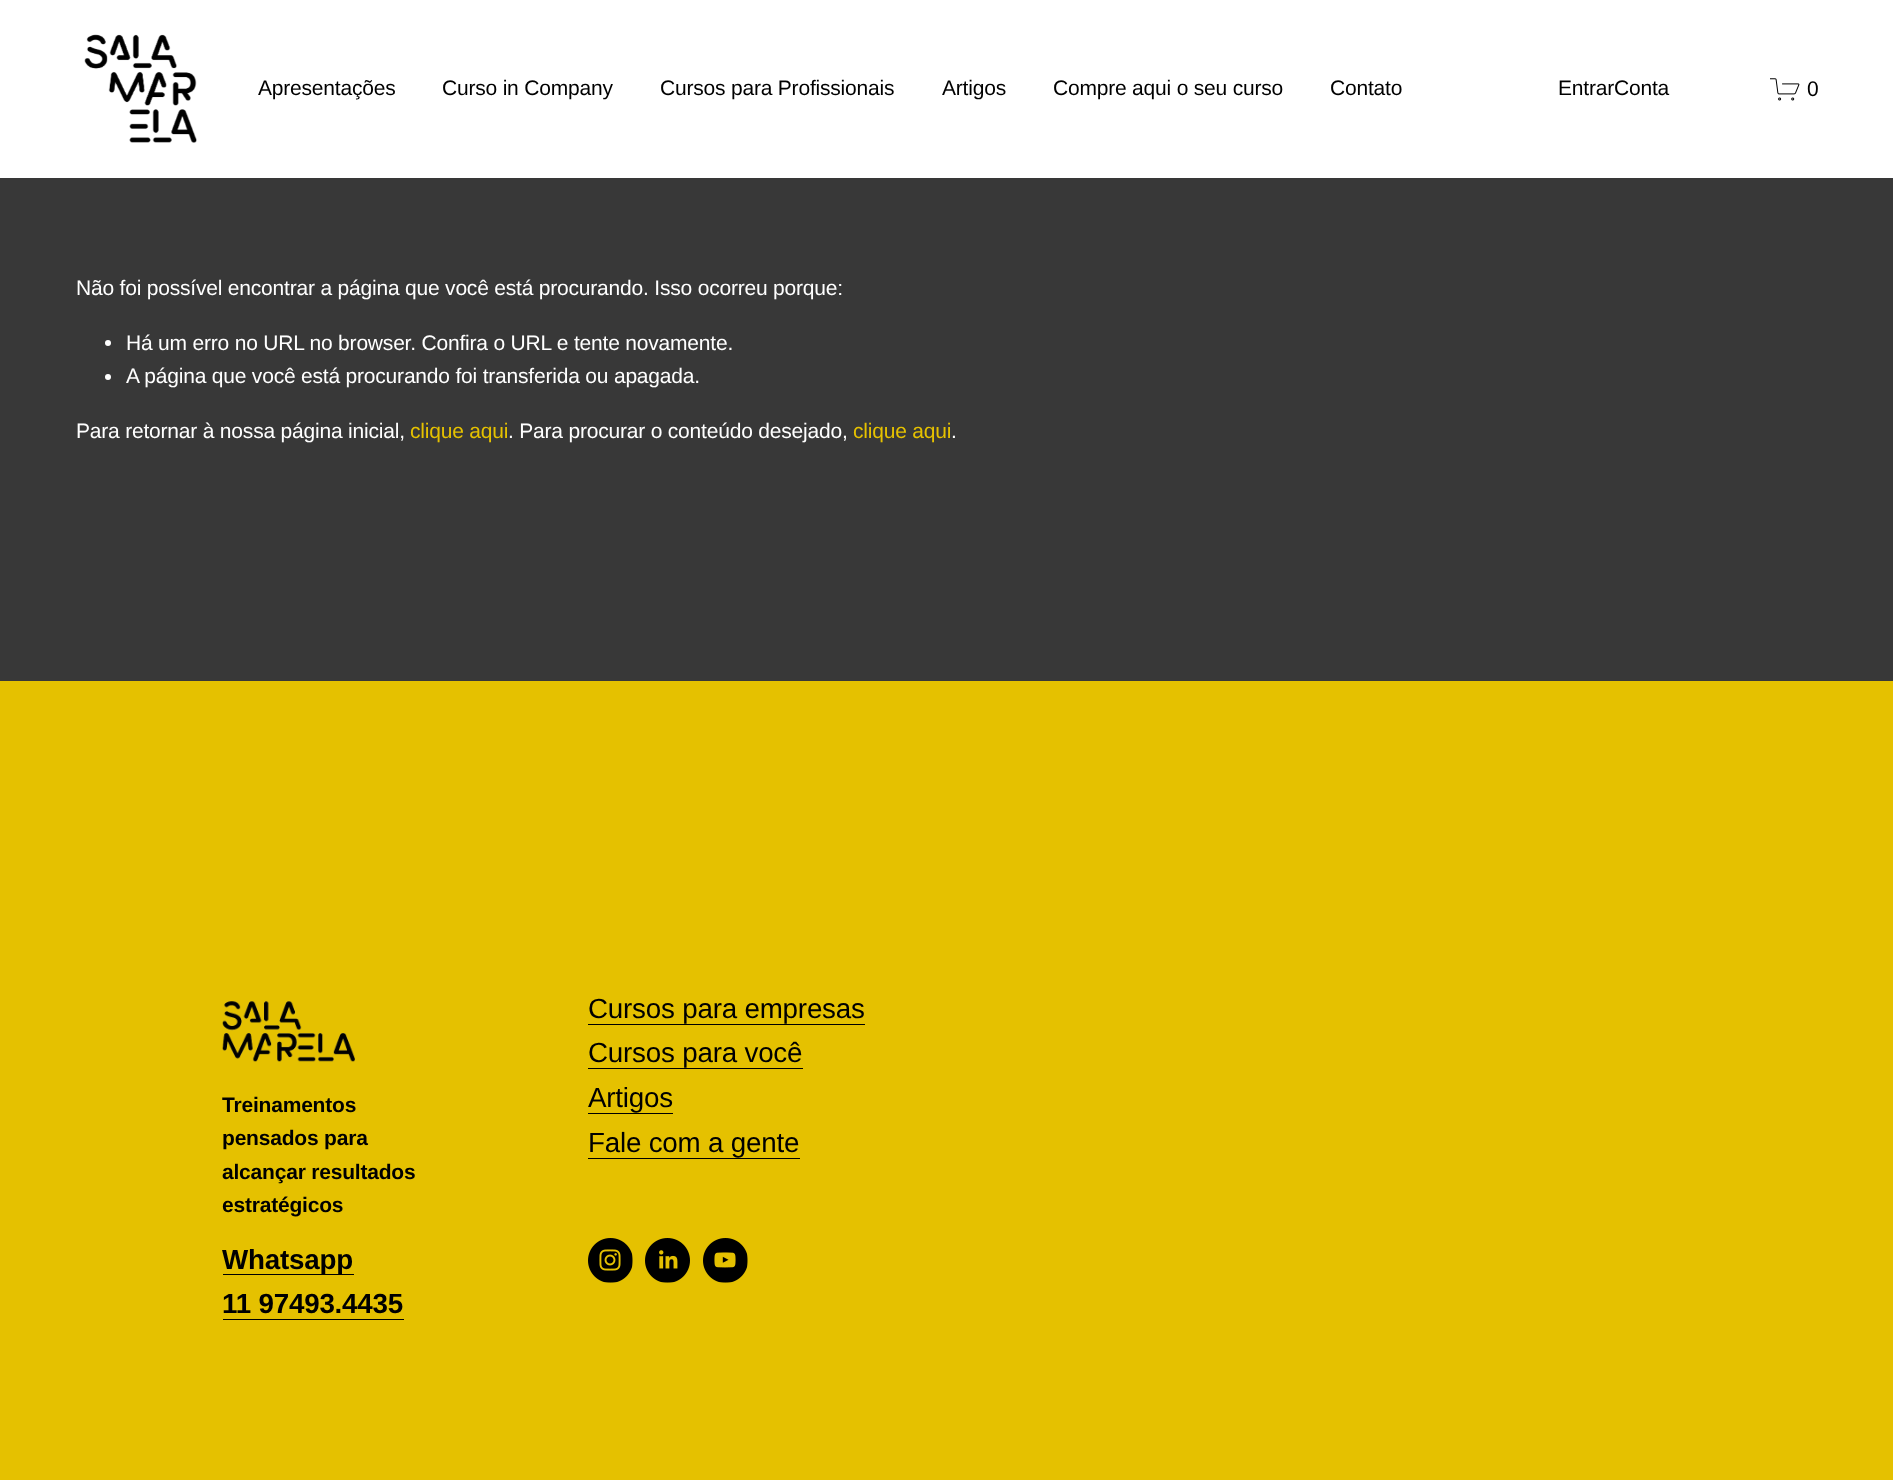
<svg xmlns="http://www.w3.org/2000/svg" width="1893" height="1480">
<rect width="100%" height="100%" fill="#383838"/>
<rect width="1893" height="178" fill="#fff"/>
<image x="84" y="34" width="113" height="109" href="media/1.png"/>
<text x="258" y="95" style="font-family:Liberation Sans;font-size:21px;letter-spacing:-0.2px;fill:#000">Apresentações</text>
<text x="442" y="95" style="font-family:Liberation Sans;font-size:21px;letter-spacing:-0.2px;fill:#000">Curso in Company</text>
<text x="660" y="95" style="font-family:Liberation Sans;font-size:21px;letter-spacing:-0.2px;fill:#000">Cursos para Profissionais</text>
<text x="942" y="95" style="font-family:Liberation Sans;font-size:21px;letter-spacing:-0.2px;fill:#000">Artigos</text>
<text x="1053" y="95" style="font-family:Liberation Sans;font-size:21px;letter-spacing:-0.2px;fill:#000">Compre aqui o seu curso</text>
<text x="1330" y="95" style="font-family:Liberation Sans;font-size:21px;letter-spacing:-0.2px;fill:#000">Contato</text>
<text x="1558" y="95" style="font-family:Liberation Sans;font-size:21px;letter-spacing:-0.2px;fill:#000">EntrarConta</text>
<image x="1770" y="78" width="30" height="23" href="media/2.png"/>
<text x="1807" y="96" style="font-family:Liberation Sans;font-size:21px;letter-spacing:-0.2px;fill:#000">0</text>
<text x="76" y="295" style="font-family:Liberation Sans;font-size:21px;letter-spacing:-0.2px;fill:#fff">Não foi possível encontrar a página que você está procurando. Isso ocorreu porque:</text>
<circle cx="108" cy="343" r="3" fill="#fff"/>
<text x="126" y="350" style="font-family:Liberation Sans;font-size:21px;letter-spacing:-0.2px;fill:#fff">Há um erro no URL no browser. Confira o URL e tente novamente.</text>
<circle cx="108" cy="377" r="3" fill="#fff"/>
<text x="126" y="383" style="font-family:Liberation Sans;font-size:21px;letter-spacing:-0.2px;fill:#fff">A página que você está procurando foi transferida ou apagada.</text>
<text x="76" y="438" style="font-family:Liberation Sans;font-size:21px;letter-spacing:-0.2px;fill:#fff">Para retornar à nossa página inicial,</text>
<text x="410" y="438" style="font-family:Liberation Sans;font-size:21px;letter-spacing:-0.2px;fill:#e5c100">clique aqui</text>
<text x="508" y="438" style="font-family:Liberation Sans;font-size:21px;letter-spacing:-0.2px;fill:#fff">. Para procurar o conteúdo desejado,</text>
<text x="853" y="438" style="font-family:Liberation Sans;font-size:21px;letter-spacing:-0.2px;fill:#e5c100">clique aqui</text>
<text x="951" y="438" style="font-family:Liberation Sans;font-size:21px;letter-spacing:-0.2px;fill:#fff">.</text>
<rect y="681" width="1893" height="799" fill="#e5c100"/>
<image x="222" y="1001" width="133" height="61" href="media/3.png"/>
<text x="588" y="1018" style="font-family:Liberation Sans;font-size:27.75px;letter-spacing:-0.2px;fill:#000">Cursos para empresas</text>
<rect x="588" y="1024" width="277" height="1" fill="#000"/>
<text x="588" y="1062" style="font-family:Liberation Sans;font-size:27.75px;letter-spacing:-0.2px;fill:#000">Cursos para você</text>
<rect x="588" y="1068" width="215" height="1" fill="#000"/>
<text x="588" y="1107" style="font-family:Liberation Sans;font-size:27.75px;letter-spacing:-0.2px;fill:#000">Artigos</text>
<rect x="588" y="1113" width="85" height="1" fill="#000"/>
<text x="588" y="1152" style="font-family:Liberation Sans;font-size:27.75px;letter-spacing:-0.2px;fill:#000">Fale com a gente</text>
<rect x="588" y="1158" width="212" height="1" fill="#000"/>
<text x="222" y="1112" style="font-family:Liberation Sans;font-size:21px;font-weight:bold;letter-spacing:-0.2px;fill:#000">Treinamentos</text>
<text x="222" y="1145" style="font-family:Liberation Sans;font-size:21px;font-weight:bold;letter-spacing:-0.2px;fill:#000">pensados para</text>
<text x="222" y="1179" style="font-family:Liberation Sans;font-size:21px;font-weight:bold;letter-spacing:-0.2px;fill:#000">alcançar resultados</text>
<text x="222" y="1212" style="font-family:Liberation Sans;font-size:21px;font-weight:bold;letter-spacing:-0.2px;fill:#000">estratégicos</text>
<rect x="223" y="1274" width="131" height="1" fill="#000"/>
<text x="222" y="1269" style="font-family:Liberation Sans;font-size:27.75px;font-weight:bold;letter-spacing:-0.2px;fill:#000">Whatsapp</text>
<text x="222" y="1313" style="font-family:Liberation Sans;font-size:27.75px;font-weight:bold;letter-spacing:-0.2px;fill:#000">11 97493.4435</text>
<rect x="223" y="1319" width="181" height="1" fill="#000"/>
<image x="588" y="1238" width="45" height="45" href="media/4.png"/>
<image x="645" y="1238" width="45" height="45" href="media/5.png"/>
<image x="703" y="1238" width="45" height="45" href="media/6.png"/>
</svg>
